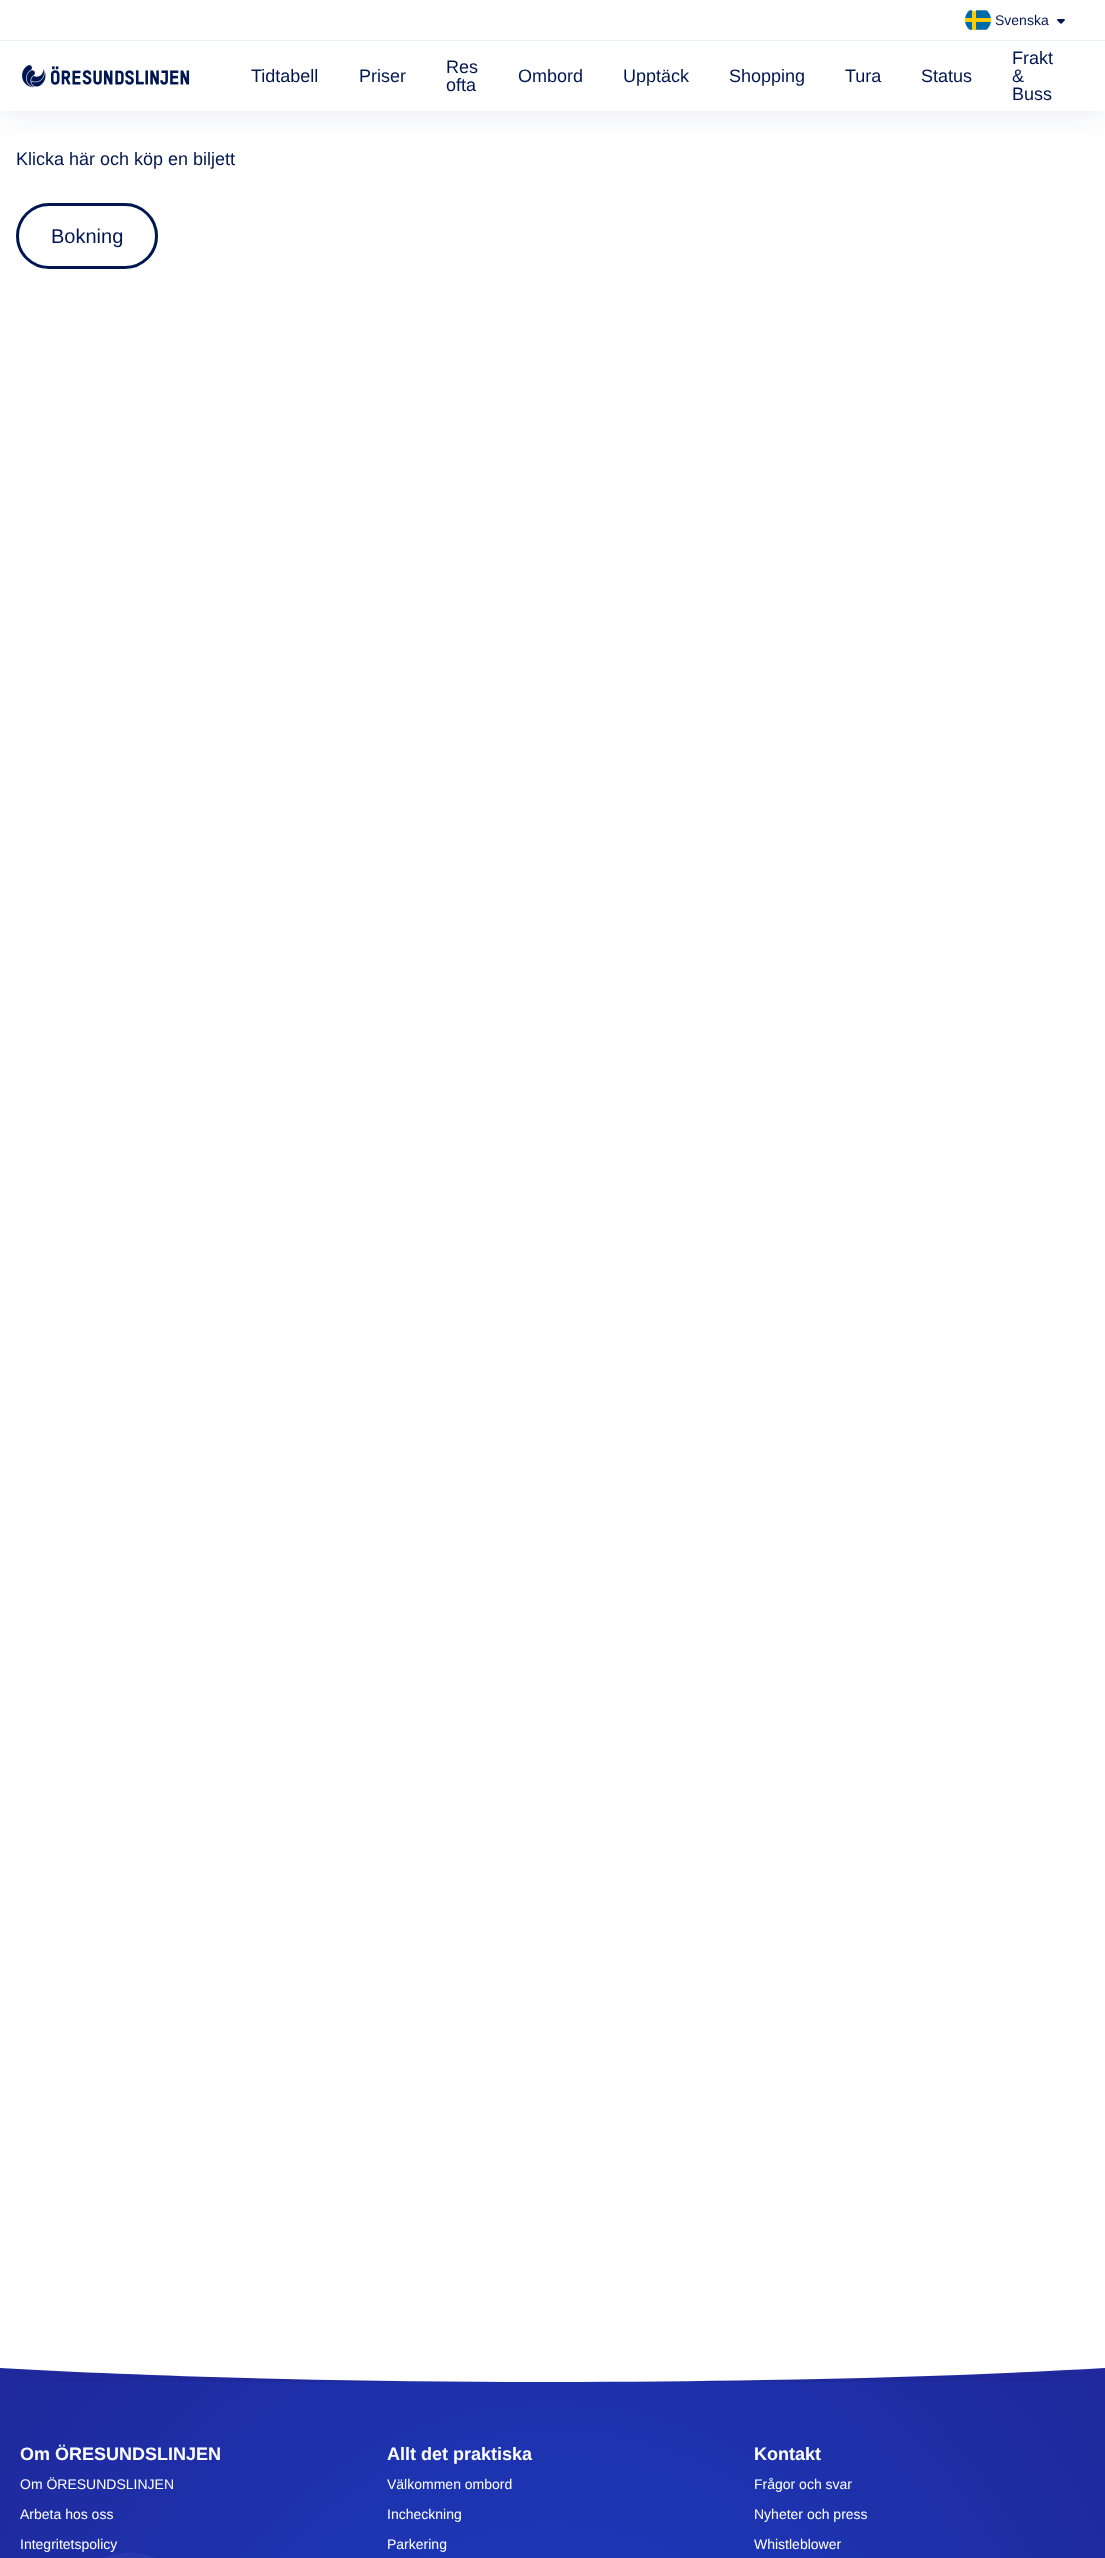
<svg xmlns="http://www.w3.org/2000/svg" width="1105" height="2558">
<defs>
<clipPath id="clip1"><rect y="2358" width="1105" height="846"/></clipPath>
<radialGradient id="g1" gradientUnits="userSpaceOnUse" cx="553" cy="2793" r="689"><stop offset="0" stop-color="#173fba"/><stop offset="0.3" stop-color="#1c37b7"/><stop offset="1" stop-color="#1f299c"/></radialGradient>
</defs>
<rect width="100%" height="100%" fill="#fff"/>
<rect width="1105" height="111" fill="#16215b1a" filter="blur(15px)"/>
<rect width="1105" height="111" fill="#fff"/>
<rect y="40" width="1105" height="1" fill="#e5eff8"/>
<image x="965" y="10" width="26" height="20" href="media/1.png"/>
<text x="995" y="25" style="font-family:Liberation Sans;font-size:14px;fill:#001651">Svenska</text>
<image x="1057" y="19" width="8" height="5" href="media/2.png"/>
<image x="22" y="65" width="168" height="23" href="media/3.png"/>
<text x="251" y="82" style="font-family:Liberation Sans;font-size:18px;fill:#001651">Tidtabell</text>
<text x="359" y="82" style="font-family:Liberation Sans;font-size:18px;fill:#001651">Priser</text>
<text x="446" y="73" style="font-family:Liberation Sans;font-size:18px;fill:#001651">Res</text>
<text x="446" y="91" style="font-family:Liberation Sans;font-size:18px;fill:#001651">ofta</text>
<text x="518" y="82" style="font-family:Liberation Sans;font-size:18px;fill:#001651">Ombord</text>
<text x="623" y="82" style="font-family:Liberation Sans;font-size:18px;fill:#001651">Upptäck</text>
<text x="729" y="82" style="font-family:Liberation Sans;font-size:18px;fill:#001651">Shopping</text>
<text x="845" y="82" style="font-family:Liberation Sans;font-size:18px;fill:#001651">Tura</text>
<text x="921" y="82" style="font-family:Liberation Sans;font-size:18px;fill:#001651">Status</text>
<text x="1012" y="64" style="font-family:Liberation Sans;font-size:18px;fill:#001651">Frakt</text>
<text x="1012" y="82" style="font-family:Liberation Sans;font-size:18px;fill:#001651">&amp;</text>
<text x="1012" y="100" style="font-family:Liberation Sans;font-size:18px;fill:#001651">Buss</text>
<text x="16" y="165" style="font-family:Liberation Sans;font-size:18px;fill:#001651">Klicka här och köp en biljett</text>
<rect x="17.5" y="204.5" width="139" height="63" rx="31.5" fill="none" stroke="#001651" stroke-width="3"/>
<text x="51" y="243" style="font-family:Liberation Sans;font-size:20px;fill:#001651">Bokning</text>
<rect y="2368" width="1105" height="14" fill="#1f299c"/>
<g clip-path="url(#clip1)">
<path d="M0 2334v34c140 8 336 14 552 14c217 0 413-6 553-14v-34z" fill="#fff"/>
</g>
<rect y="2382" width="1105" height="176" fill="url(#g1)"/>
<text x="20" y="2460" style="font-family:Liberation Sans;font-size:18px;font-weight:bold;fill:#fff">Om ÖRESUNDSLINJEN</text>
<text x="20" y="2489" style="font-family:Liberation Sans;font-size:14px;fill:#fff">Om ÖRESUNDSLINJEN</text>
<text x="20" y="2519" style="font-family:Liberation Sans;font-size:14px;fill:#fff">Arbeta hos oss</text>
<text x="20" y="2549" style="font-family:Liberation Sans;font-size:14px;fill:#fff">Integritetspolicy</text>
<text x="387" y="2460" style="font-family:Liberation Sans;font-size:18px;font-weight:bold;fill:#fff">Allt det praktiska</text>
<text x="387" y="2489" style="font-family:Liberation Sans;font-size:14px;fill:#fff">Välkommen ombord</text>
<text x="387" y="2519" style="font-family:Liberation Sans;font-size:14px;fill:#fff">Incheckning</text>
<text x="387" y="2549" style="font-family:Liberation Sans;font-size:14px;fill:#fff">Parkering</text>
<text x="754" y="2460" style="font-family:Liberation Sans;font-size:18px;font-weight:bold;fill:#fff">Kontakt</text>
<text x="754" y="2489" style="font-family:Liberation Sans;font-size:14px;fill:#fff">Frågor och svar</text>
<text x="754" y="2519" style="font-family:Liberation Sans;font-size:14px;fill:#fff">Nyheter och press</text>
<text x="754" y="2549" style="font-family:Liberation Sans;font-size:14px;fill:#fff">Whistleblower</text>
<image x="104" y="2552" width="50" height="6" href="media/4.png"/>
</svg>
